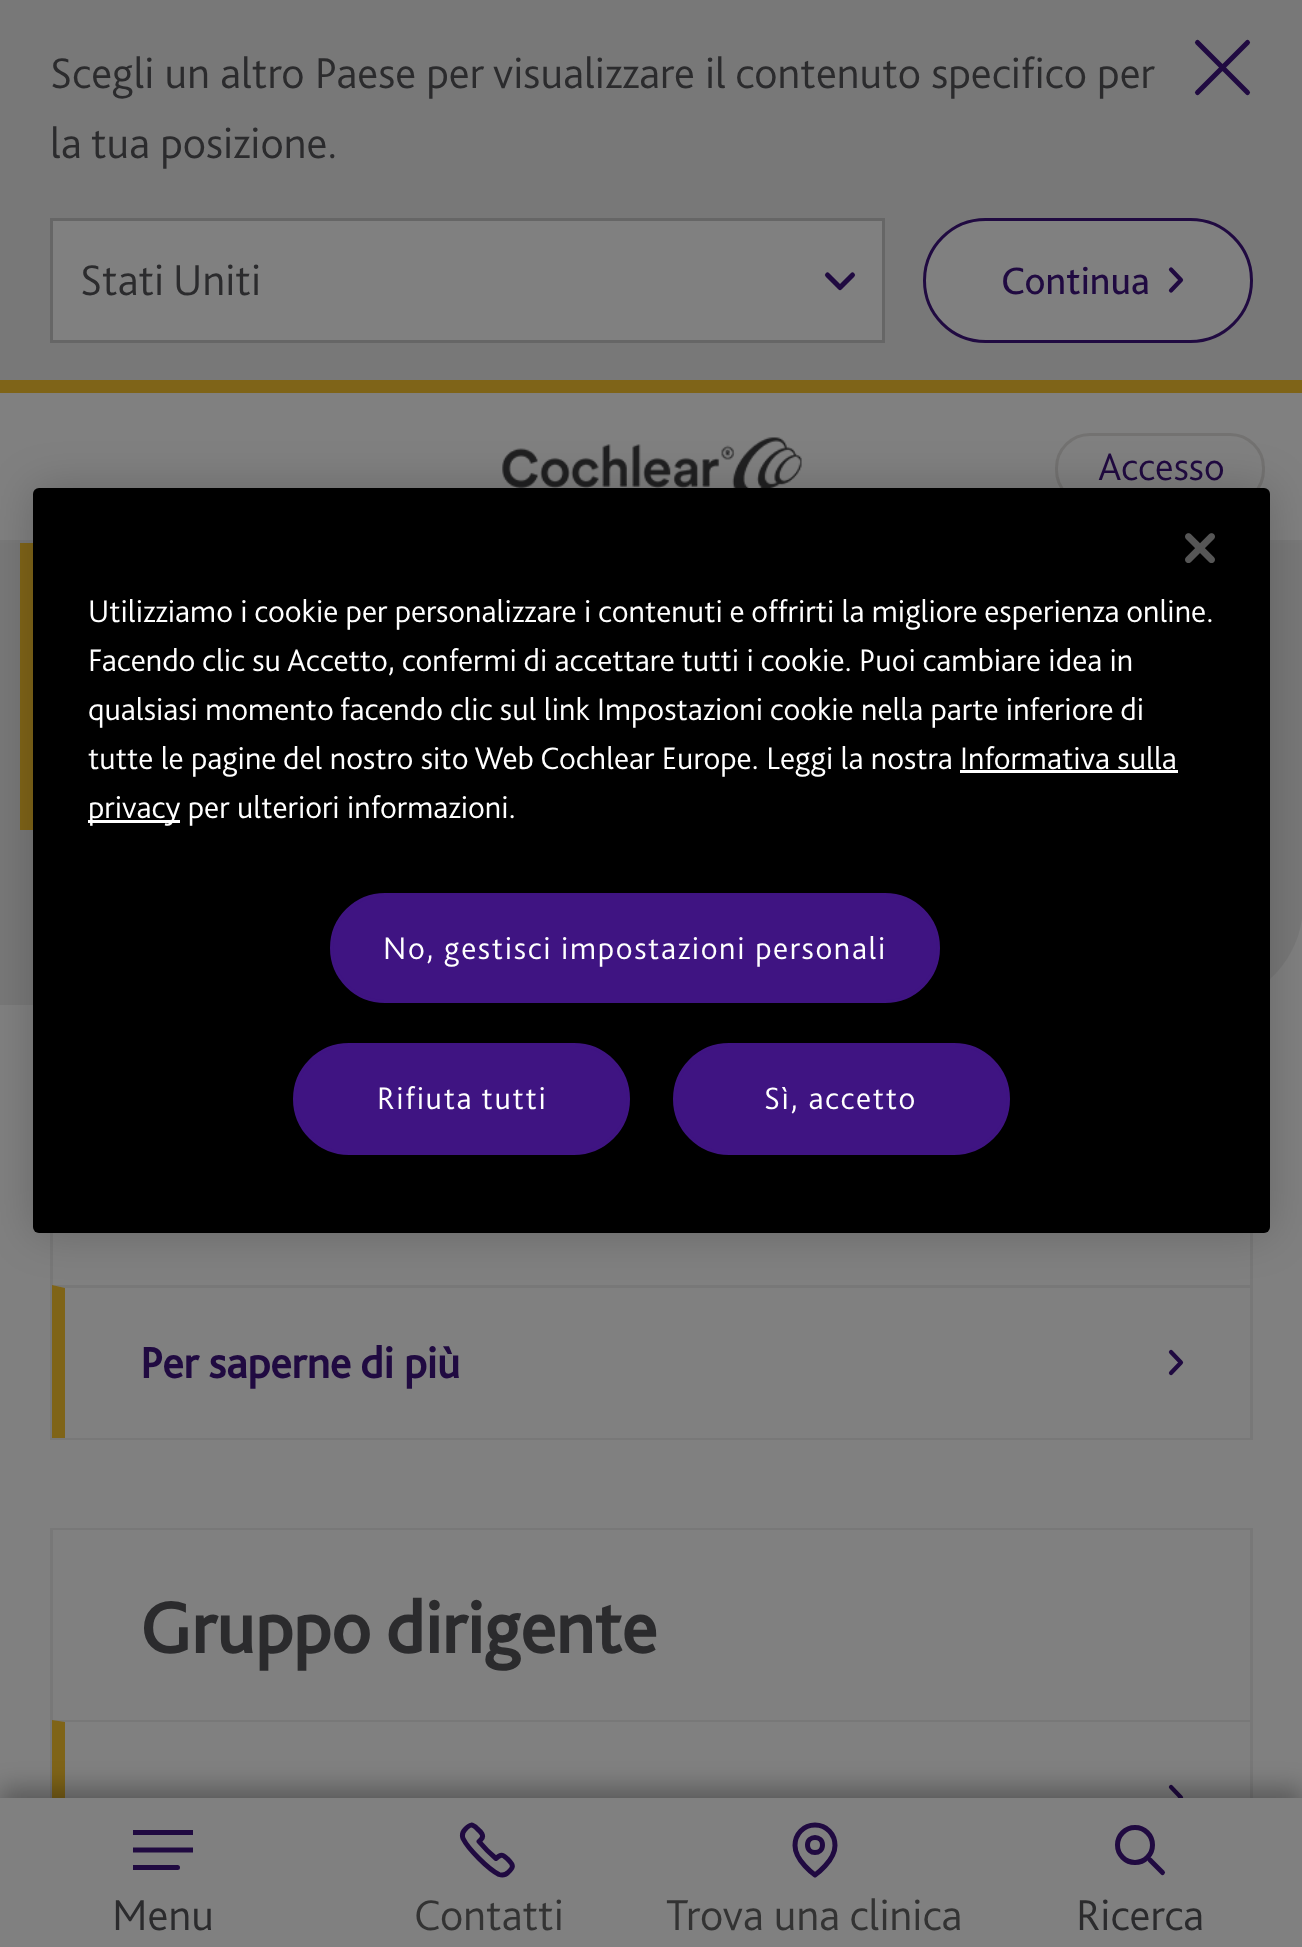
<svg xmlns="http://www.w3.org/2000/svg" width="1302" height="1947">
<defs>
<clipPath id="clip1"><rect x="133" y="1820" width="60" height="60"/></clipPath>
</defs>
<rect width="100%" height="100%" fill="#808080"/>
<rect y="540" width="1302" height="3" fill="#797979"/>
<rect width="1302" height="380" fill="#787878"/>
<text x="50" y="88" style="font-family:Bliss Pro;font-size:45px;font-weight:300;fill:#2b2b2d">Scegli un altro Paese per visualizzare il contenuto specifico per</text>
<text x="50" y="158" style="font-family:Bliss Pro;font-size:45px;font-weight:300;fill:#2b2b2d">la tua posizione.</text>
<path d="M1247.5 42.5l-50 50m50 0l-50-50" fill="none" stroke="#200a41" stroke-width="5" stroke-linecap="round" stroke-linejoin="round"/>
<rect x="53" y="221" width="829" height="119" fill="#808080"/>
<path d="M852.5 275l-12.5 12.5l-12.5-12.5" fill="none" stroke="#200a41" stroke-width="5" stroke-linecap="round" stroke-linejoin="round"/>
<rect x="51.5" y="219.5" width="832" height="122" fill="none" stroke="#666" stroke-width="3"/>
<text x="80" y="295" style="font-family:Bliss Pro;font-size:45px;font-weight:300;fill:#2b2b2d">Stati Uniti</text>
<rect x="924.5" y="219.5" width="327" height="122" rx="61" fill="#808080" stroke="#200a41" stroke-width="3"/>
<text x="1001" y="294" style="font-family:Bliss Pro;font-size:40px;fill:#200a41">Continua</text>
<path d="M1171 269.5l10 10.5l-10 10.5" fill="none" stroke="#200a41" stroke-width="4.2" stroke-linecap="round" stroke-linejoin="round"/>
<rect y="380" width="1302" height="13" fill="#7f6418"/>
<image x="502" y="437" width="300" height="51" href="media/1.png"/>
<rect x="1056.5" y="434.5" width="207" height="69" rx="33.5" fill="none" stroke="#737271" stroke-width="3"/>
<text x="1098" y="480" style="font-family:Bliss Pro;font-size:40px;font-weight:300;fill:#200a41">Accesso</text>
<rect x="51.5" y="1529.5" width="1200" height="344" fill="none" stroke="#787878" stroke-width="3"/>
<path d="M52 1720h1198v2h-1185z" fill="#787878"/>
<path d="M52 1872v-152l13 2v150z" fill="#7f6418"/>
<path d="M1171 1787l10 10.5l-10 10.5" fill="none" stroke="#200a41" stroke-width="4.2" stroke-linecap="round" stroke-linejoin="round"/>
<rect y="1788" width="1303" height="150" fill="#0000004d" filter="blur(12.5px)"/>
<rect y="1798" width="1302" height="149" fill="#808080"/>
<g clip-path="url(#clip1)">
<path d="M132.5 1850h60m-60 17.5h45m-45-35h60" fill="none" stroke="#200a41" stroke-width="5" stroke-linecap="round" stroke-linejoin="round"/>
</g>
<text x="112" y="1930" style="font-family:Bliss Pro;font-size:45px;font-weight:300;fill:#2b2b2d">Menu</text>
<path d="M481 1839.5c4-4-.5-8-3.5-10.5c-5.5-5.5-7.5-5-12.5 .5c-2.5 2.5-3 6-2 9c3 6 11 15 16 20c5 5 14 13 20 16c3 1 6.5 .5 9-2c5.5-5 6-7 .5-12.5c-5-5-7-7-12.5-1.5c-6-5-12-11-17-17z" fill="none" stroke="#200a41" stroke-width="5" stroke-linecap="round" stroke-linejoin="round"/>
<text x="414" y="1930" style="font-family:Bliss Pro;font-size:45px;font-weight:300;fill:#333">Contatti</text>
<path d="M835 1845.5c0 15.5-20 29.5-20 29.5c0 0-20-14-20-29.5c0-11.5 8.5-20.5 20-20.5c11.5 0 20 9 20 20.5zm-12.5-.5c0 10-15 10-15 0c0-10 15-10 15 0z" fill="none" stroke="#200a41" stroke-width="5" stroke-linecap="round" stroke-linejoin="round"/>
<text x="666" y="1930" style="font-family:Bliss Pro;font-size:45px;font-weight:300;fill:#333">Trova una clinica</text>
<circle cx="1135" cy="1845" r="17.5" fill="none" stroke="#200a41" stroke-width="5"/>
<path d="M1150 1860l12.5 12.5" fill="none" stroke="#200a41" stroke-width="5" stroke-linecap="round"/>
<text x="1076" y="1930" style="font-family:Bliss Pro;font-size:45px;font-weight:300;fill:#2b2b2d">Ricerca</text>
<path d="M0 543h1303v362c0 55-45 100-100 100h-1203z" fill="#787878"/>
<rect x="20" y="543" width="13" height="287" fill="#7f6418"/>
<rect x="51.5" y="1094.5" width="1200" height="344" fill="none" stroke="#787878" stroke-width="3"/>
<rect x="53" y="1437" width="1197" height="1" fill="#808080"/>
<path d="M52 1285h1198v3h-1185z" fill="#787878"/>
<path d="M52 1438v-153l13 3v150z" fill="#7f6418"/>
<text x="140" y="1378" style="font-family:Bliss Pro;font-size:45px;font-weight:bold;fill:#200a41">Per saperne di più</text>
<path d="M1171 1352l10 10.5l-10 10.5" fill="none" stroke="#200a41" stroke-width="4.2" stroke-linecap="round" stroke-linejoin="round"/>
<rect x="53" y="1530" width="1197" height="1" fill="#808080"/>
<text x="140" y="1653" style="font-family:Bliss Pro;font-size:75px;font-weight:bold;fill:#2b2b2d">Gruppo dirigente</text>
<rect x="33" y="488" width="1237" height="745" rx="6" fill="#00000033" filter="blur(22.5px)"/>
<rect x="33" y="488" width="1237" height="745" rx="6" fill="#000"/>
<image x="1185" y="533" width="30" height="30" href="media/2.png"/>
<text x="88" y="622" style="font-family:Bliss Pro;font-size:32.5px;font-weight:300;fill:#fff">Utilizziamo i cookie per personalizzare i contenuti e offrirti la migliore esperienza online.</text>
<text x="88" y="671" style="font-family:Bliss Pro;font-size:32.5px;font-weight:300;fill:#fff">Facendo clic su Accetto, confermi di accettare tutti i cookie. Puoi cambiare idea in</text>
<text x="88" y="720" style="font-family:Bliss Pro;font-size:32.5px;font-weight:300;fill:#fff">qualsiasi momento facendo clic sul link Impostazioni cookie nella parte inferiore di</text>
<text x="88" y="769" style="font-family:Bliss Pro;font-size:32.5px;font-weight:300;fill:#fff">tutte le pagine del nostro sito Web Cochlear Europe. Leggi la nostra</text>
<text x="960" y="769" style="font-family:Bliss Pro;font-size:32.5px;font-weight:300;fill:#fff">Informativa sulla</text>
<rect x="960" y="770" width="218" height="3" fill="#fff"/>
<rect x="88" y="820" width="92" height="3" fill="#fff"/>
<text x="88" y="818" style="font-family:Bliss Pro;font-size:32.5px;font-weight:300;fill:#fff">privacy per ulteriori informazioni.</text>
<rect x="331.5" y="894.5" width="607" height="107" rx="53.5" fill="#3f1482" stroke="#3f1482" stroke-width="3"/>
<text x="383" y="959" style="font-family:Bliss Pro;font-size:32.5px;font-weight:300;letter-spacing:1.65px;fill:#fff">No, gestisci impostazioni personali</text>
<rect x="294.5" y="1044.5" width="334" height="109" rx="54.5" fill="#3f1482" stroke="#3f1482" stroke-width="3"/>
<text x="377" y="1109" style="font-family:Bliss Pro;font-size:32.5px;font-weight:300;letter-spacing:1.65px;fill:#fff">Rifiuta tutti</text>
<rect x="674.5" y="1044.5" width="334" height="109" rx="54.5" fill="#3f1482" stroke="#3f1482" stroke-width="3"/>
<text x="764" y="1109" style="font-family:Bliss Pro;font-size:32.5px;font-weight:300;letter-spacing:1.65px;fill:#fff">Sì, accetto</text>
</svg>
